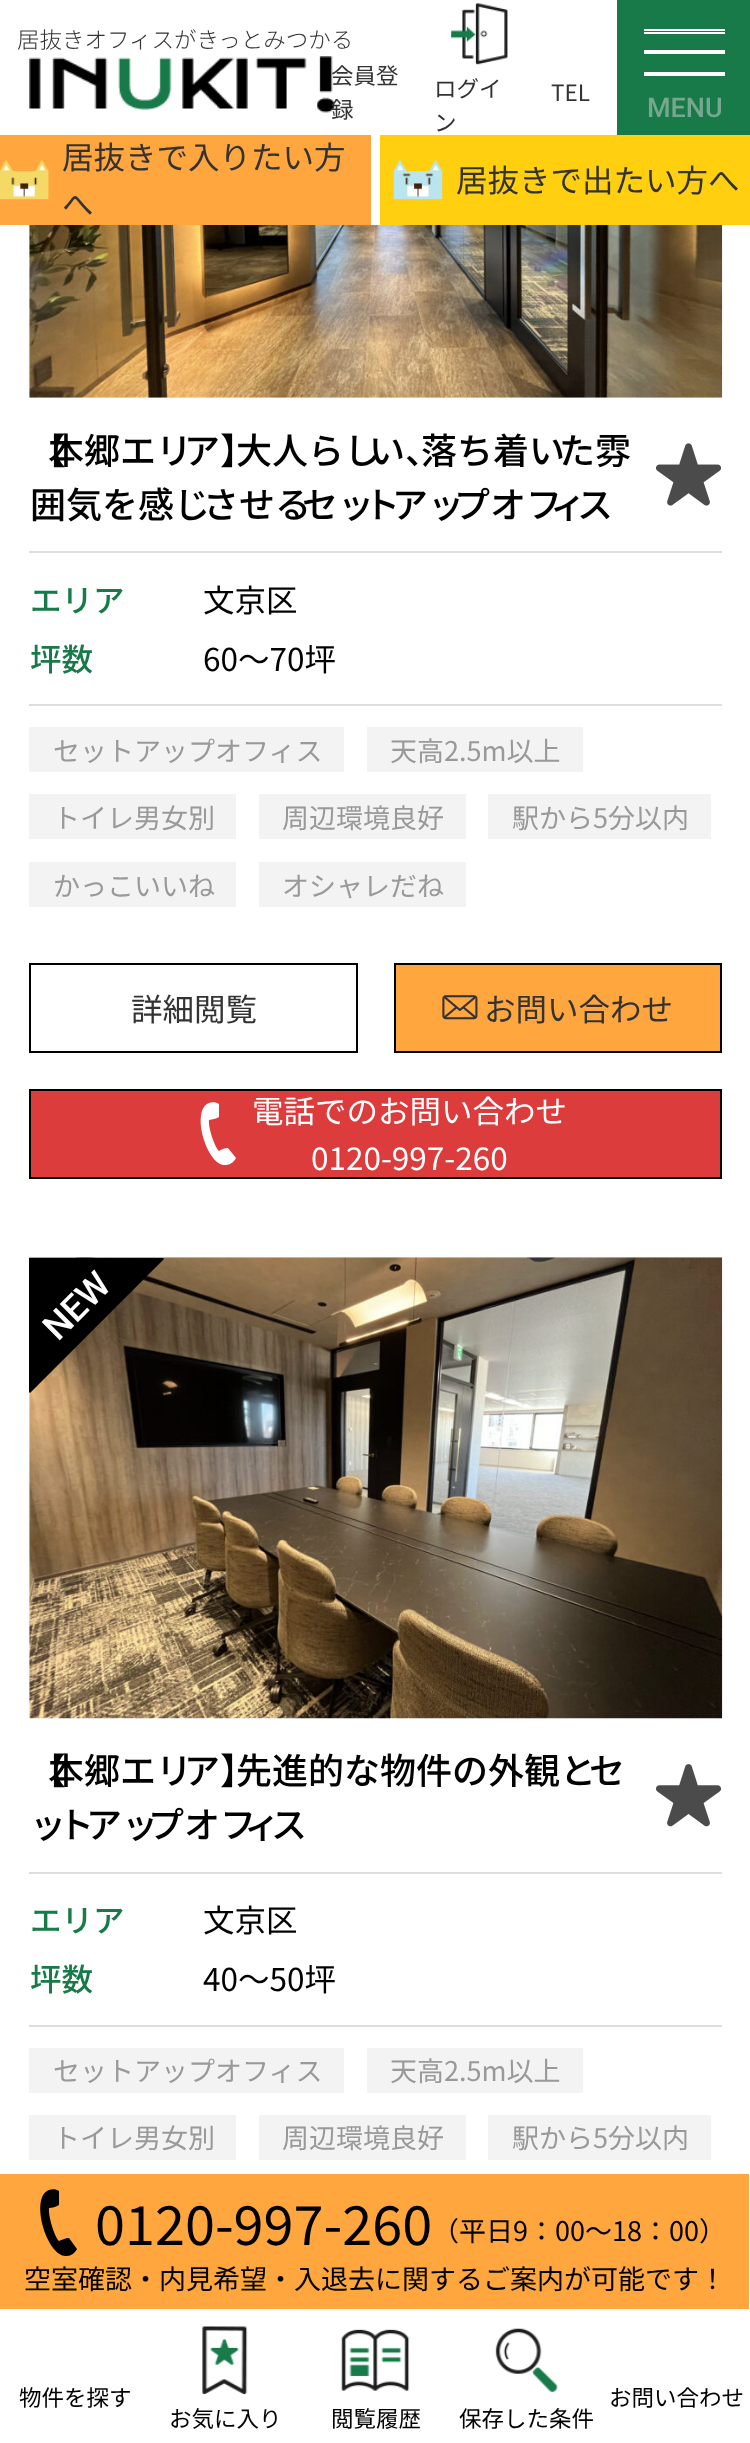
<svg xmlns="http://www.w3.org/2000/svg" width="750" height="2443">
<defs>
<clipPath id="clip1"><rect x="29" y="1258" width="693" height="461"/></clipPath>
</defs>
<rect width="100%" height="100%" fill="#fff"/>
<text x="17" y="48" style="font-family:Noto Sans JP;font-size:22.5px;font-weight:300;fill:#333">居抜きオフィスがきっとみつかる</text>
<image x="29" y="56" width="307" height="57" href="media/1.png"/>
<text x="331" y="84" style="font-family:Noto Sans JP;font-size:22.5px;fill:#333">会員登</text>
<text x="331" y="118" style="font-family:Noto Sans JP;font-size:22.5px;fill:#333">録</text>
<image x="451" y="3" width="57" height="62" href="media/2.png"/>
<text x="434" y="97" style="font-family:Noto Sans JP;font-size:22.5px;fill:#333">ログイ</text>
<text x="434" y="131" style="font-family:Noto Sans JP;font-size:22.5px;fill:#333">ン</text>
<text x="551" y="101" style="font-family:Noto Sans JP;font-size:22.5px;fill:#333">TEL</text>
<rect x="617" width="133" height="135" fill="#177a48"/>
<rect x="644" y="50" width="81" height="4" fill="#fff"/>
<rect x="644" y="29" width="81" height="2" fill="#fff"/>
<rect x="644" y="32" width="81" height="2" fill="#fff"/>
<rect x="644" y="72" width="81" height="4" fill="#fff"/>
<text x="647" y="117" style="font-family:Roboto;font-size:27px;font-weight:500;fill:#76a88f">MENU</text>
<rect y="135" width="371" height="90" fill="#ffa63e"/>
<image x="0" y="159" width="49" height="41" href="media/3.png"/>
<text x="62" y="169" style="font-family:Noto Sans JP;font-size:31.5px;fill:#333">居抜きで入りたい方</text>
<text x="62" y="216" style="font-family:Noto Sans JP;font-size:31.5px;fill:#333">へ</text>
<rect x="380" y="135" width="370" height="90" fill="#ffcf10"/>
<image x="393" y="159" width="50" height="41" href="media/4.png"/>
<text x="456" y="192" style="font-family:Noto Sans JP;font-size:31.5px;fill:#333">居抜きで出たい方へ</text>
<image x="29" y="225" width="694" height="173" href="media/5.png"/>
<text x="30" y="464" style="font-family:Noto Sans JP;font-size:36px;font-weight:500;fill:#000">【</text>
<text x="48" y="464" style="font-family:Noto Sans JP;font-size:36px;font-weight:500;fill:#000">本郷エリ</text>
<text x="184" y="464" style="font-family:Noto Sans JP;font-size:36px;font-weight:500;fill:#000">ア】</text>
<text x="236" y="464" style="font-family:Noto Sans JP;font-size:36px;font-weight:500;fill:#000">大人らし</text>
<text x="369" y="464" style="font-family:Noto Sans JP;font-size:36px;font-weight:500;fill:#000">い、</text>
<text x="421" y="464" style="font-family:Noto Sans JP;font-size:36px;font-weight:500;fill:#000">落ち着い</text>
<text x="559" y="464" style="font-family:Noto Sans JP;font-size:36px;font-weight:500;fill:#000">た雰</text>
<text x="30" y="518" style="font-family:Noto Sans JP;font-size:36px;font-weight:500;fill:#000">囲気を感じ</text>
<text x="203" y="518" style="font-family:Noto Sans JP;font-size:36px;font-weight:500;fill:#000">させる</text>
<text x="302" y="518" style="font-family:Noto Sans JP;font-size:36px;font-weight:500;fill:#000">セッ</text>
<text x="364" y="518" style="font-family:Noto Sans JP;font-size:36px;font-weight:500;fill:#000">ト</text>
<text x="392" y="518" style="font-family:Noto Sans JP;font-size:36px;font-weight:500;fill:#000">アッ</text>
<text x="454" y="518" style="font-family:Noto Sans JP;font-size:36px;font-weight:500;fill:#000">プオフ</text>
<text x="550" y="518" style="font-family:Noto Sans JP;font-size:36px;font-weight:500;fill:#000">ィ</text>
<text x="577" y="518" style="font-family:Noto Sans JP;font-size:36px;font-weight:500;fill:#000">ス</text>
<image x="656" y="443" width="65" height="63" href="media/6.png"/>
<rect x="29" y="551" width="693" height="2" fill="#ddd"/>
<rect x="29" y="704" width="693" height="2" fill="#ddd"/>
<text x="30" y="612" style="font-family:Noto Sans JP;font-size:31.5px;font-weight:500;fill:#177a48">エリア</text>
<text x="203" y="612" style="font-family:Noto Sans JP;font-size:31.5px;fill:#000">文京区</text>
<text x="30" y="671" style="font-family:Noto Sans JP;font-size:31.5px;font-weight:500;fill:#177a48">坪数</text>
<text x="203" y="671" style="font-family:Noto Sans JP;font-size:31.5px;fill:#000">60～70坪</text>
<rect x="29" y="727" width="315" height="45" fill="#f3f3f3"/>
<text x="53" y="761" style="font-family:Noto Sans JP;font-size:27px;fill:#999">セットアップオフィス</text>
<rect x="367" y="727" width="216" height="45" fill="#f3f3f3"/>
<text x="390" y="761" style="font-family:Noto Sans JP;font-size:27px;fill:#999">天高2.5m以上</text>
<rect x="29" y="794" width="207" height="45" fill="#f3f3f3"/>
<text x="53" y="828" style="font-family:Noto Sans JP;font-size:27px;fill:#999">トイレ男女別</text>
<rect x="259" y="794" width="207" height="45" fill="#f3f3f3"/>
<text x="282" y="828" style="font-family:Noto Sans JP;font-size:27px;fill:#999">周辺環境良好</text>
<rect x="488" y="794" width="223" height="45" fill="#f3f3f3"/>
<text x="512" y="828" style="font-family:Noto Sans JP;font-size:27px;fill:#999">駅から5分以内</text>
<rect x="29" y="862" width="207" height="45" fill="#f3f3f3"/>
<text x="53" y="896" style="font-family:Noto Sans JP;font-size:27px;fill:#999">かっこいいね</text>
<rect x="259" y="862" width="207" height="45" fill="#f3f3f3"/>
<text x="282" y="896" style="font-family:Noto Sans JP;font-size:27px;fill:#999">オシャレだね</text>
<rect x="30" y="964" width="327" height="88" fill="none" stroke="#000" stroke-width="2"/>
<text x="131" y="1021" style="font-family:Noto Sans JP;font-size:31.5px;fill:#333">詳細閲覧</text>
<rect x="395" y="964" width="326" height="88" fill="#ffa63e" stroke="#000" stroke-width="2"/>
<image x="442" y="995" width="36" height="25" href="media/7.png"/>
<text x="484" y="1021" style="font-family:Noto Sans JP;font-size:31.5px;fill:#333">お問い合わせ</text>
<rect x="30" y="1090" width="691" height="88" fill="#dc3c3c" stroke="#000" stroke-width="2"/>
<path d="M219 1151c-5-5-11-25-10-31c3-1 7-1 10-3v-13c-3-2-7-2-10-1c-19 7-2 64 17 62c4 0 8-3 10-7l-8-10c-3 0-6 1-9 3z" fill="#fff"/>
<text x="252" y="1123" style="font-family:Noto Sans JP;font-size:31.5px;fill:#fff">電話でのお問い合わせ</text>
<text x="311" y="1170" style="font-family:Noto Sans JP;font-size:31.5px;fill:#fff">0120-997-260</text>
<image x="29" y="1257" width="694" height="462" href="media/8.png"/>
<g clip-path="url(#clip1)">
<path d="M-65 1298l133-134l96 95l-134 134z" fill="#000"/>
</g>
<text x="58" y="1342" transform="rotate(-45 58 1342)" style="font-family:Roboto;font-size:36px;font-weight:500;fill:#fff">NEW</text>
<text x="30" y="1784" style="font-family:Noto Sans JP;font-size:36px;font-weight:500;fill:#000">【</text>
<text x="48" y="1784" style="font-family:Noto Sans JP;font-size:36px;font-weight:500;fill:#000">本郷エリ</text>
<text x="184" y="1784" style="font-family:Noto Sans JP;font-size:36px;font-weight:500;fill:#000">ア】</text>
<text x="236" y="1784" style="font-family:Noto Sans JP;font-size:36px;font-weight:500;fill:#000">先進的な物件の外観と</text>
<text x="589" y="1784" style="font-family:Noto Sans JP;font-size:36px;font-weight:500;fill:#000">セ</text>
<text x="30" y="1838" style="font-family:Noto Sans JP;font-size:36px;font-weight:500;fill:#000">ッ</text>
<text x="58" y="1838" style="font-family:Noto Sans JP;font-size:36px;font-weight:500;fill:#000">ト</text>
<text x="86" y="1838" style="font-family:Noto Sans JP;font-size:36px;font-weight:500;fill:#000">アッ</text>
<text x="148" y="1838" style="font-family:Noto Sans JP;font-size:36px;font-weight:500;fill:#000">プオフ</text>
<text x="244" y="1838" style="font-family:Noto Sans JP;font-size:36px;font-weight:500;fill:#000">ィ</text>
<text x="271" y="1838" style="font-family:Noto Sans JP;font-size:36px;font-weight:500;fill:#000">ス</text>
<image x="655" y="1764" width="67" height="63" href="media/9.png"/>
<rect x="29" y="1872" width="693" height="2" fill="#ddd"/>
<rect x="29" y="2025" width="693" height="2" fill="#ddd"/>
<text x="30" y="1932" style="font-family:Noto Sans JP;font-size:31.5px;font-weight:500;fill:#177a48">エリア</text>
<text x="203" y="1932" style="font-family:Noto Sans JP;font-size:31.5px;fill:#000">文京区</text>
<text x="30" y="1991" style="font-family:Noto Sans JP;font-size:31.5px;font-weight:500;fill:#177a48">坪数</text>
<text x="203" y="1991" style="font-family:Noto Sans JP;font-size:31.5px;fill:#000">40～50坪</text>
<rect x="29" y="2048" width="315" height="45" fill="#f3f3f3"/>
<text x="53" y="2081" style="font-family:Noto Sans JP;font-size:27px;fill:#999">セットアップオフィス</text>
<rect x="367" y="2048" width="216" height="45" fill="#f3f3f3"/>
<text x="390" y="2081" style="font-family:Noto Sans JP;font-size:27px;fill:#999">天高2.5m以上</text>
<rect x="29" y="2115" width="207" height="45" fill="#f3f3f3"/>
<text x="53" y="2148" style="font-family:Noto Sans JP;font-size:27px;fill:#999">トイレ男女別</text>
<rect x="259" y="2115" width="207" height="45" fill="#f3f3f3"/>
<text x="282" y="2148" style="font-family:Noto Sans JP;font-size:27px;fill:#999">周辺環境良好</text>
<rect x="488" y="2115" width="223" height="45" fill="#f3f3f3"/>
<text x="512" y="2148" style="font-family:Noto Sans JP;font-size:27px;fill:#999">駅から5分以内</text>
<rect y="2174" width="749" height="135" fill="#ffa63e"/>
<path d="M59 2241c-5-5-11-26-10-33c3 0 7-1 10-3v-14c-3-2-7-2-10-1c-20 7-2 68 18 66c4 0 8-3 10-7l-8-11c-4 0-7 2-10 3z" fill="#000"/>
<text x="95" y="2245" style="font-family:Noto Sans JP;font-size:54px;fill:#000">0120-997-260</text>
<text x="432" y="2241" style="font-family:Noto Sans JP;font-size:27px;fill:#000">（平日9：00～18：00）</text>
<text x="24" y="2289" style="font-family:Noto Sans JP;font-size:27px;fill:#000">空室確認・内見希望・入退去に関するご案内が可能です！</text>
<text x="19" y="2406" style="font-family:Noto Sans JP;font-size:22.5px;fill:#000">物件を探す</text>
<text x="609" y="2406" style="font-family:Noto Sans JP;font-size:22.5px;fill:#000">お問い合わせ</text>
<image x="202" y="2326" width="46" height="69" href="media/10.png"/>
<text x="169" y="2427" style="font-family:Noto Sans JP;font-size:22.5px;fill:#000">お気に入り</text>
<image x="341" y="2329" width="69" height="62" href="media/11.png"/>
<text x="331" y="2427" style="font-family:Noto Sans JP;font-size:22.5px;fill:#000">閲覧履歴</text>
<image x="495" y="2328" width="63" height="64" href="media/12.png"/>
<text x="459" y="2427" style="font-family:Noto Sans JP;font-size:22.5px;fill:#000">保存した条件</text>
</svg>
